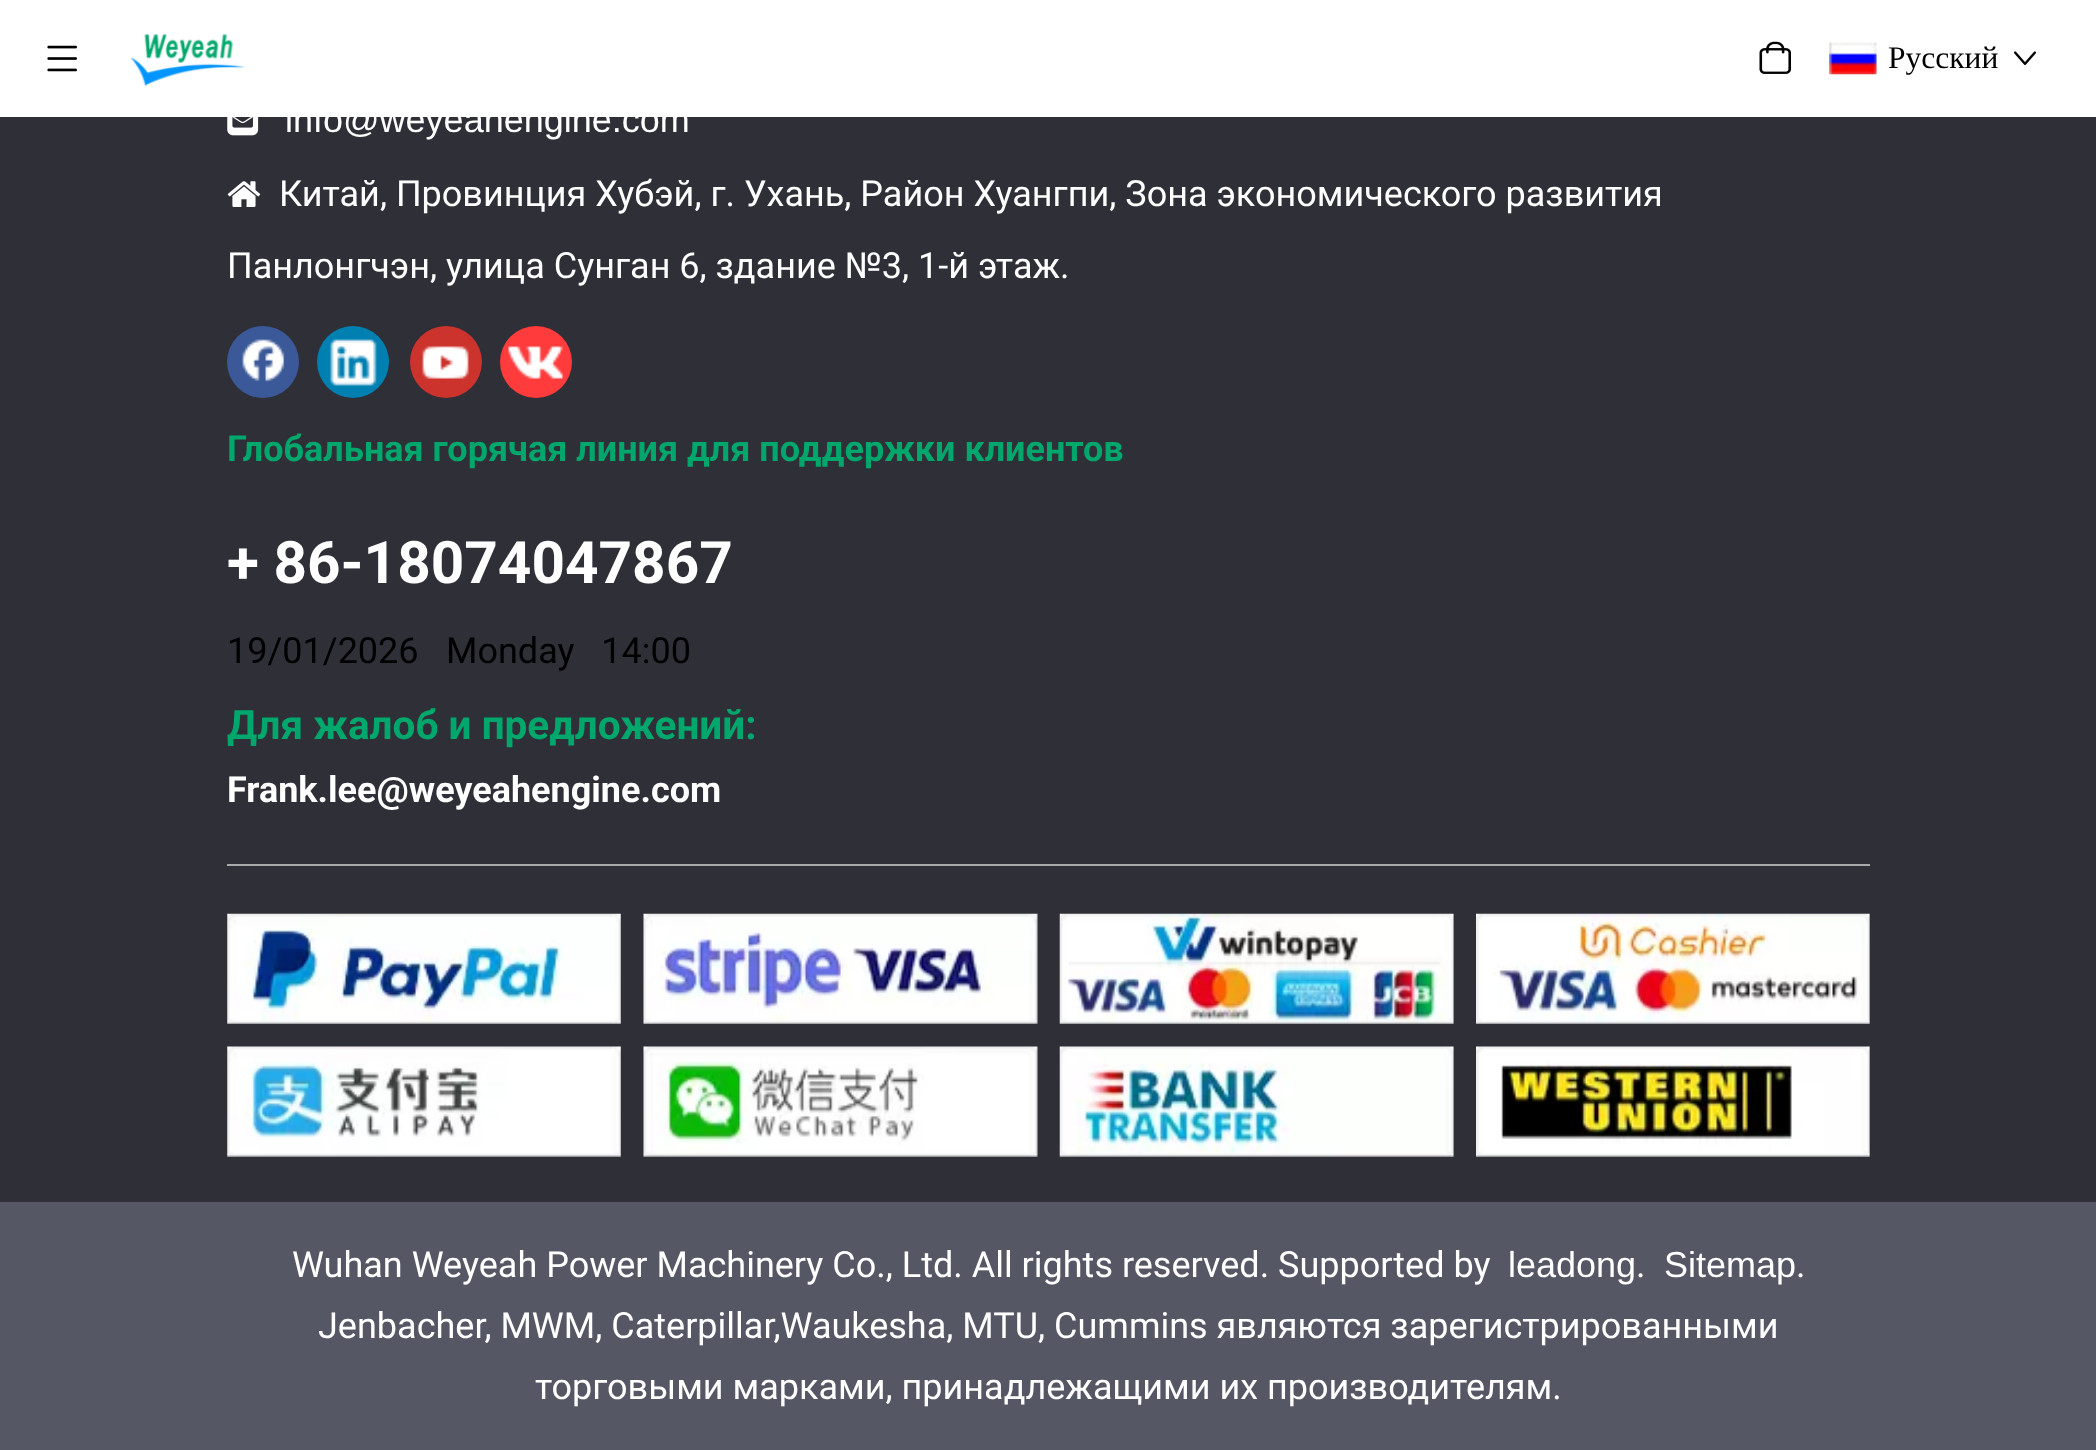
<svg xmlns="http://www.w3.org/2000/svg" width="2096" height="1450">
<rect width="100%" height="100%" fill="#2f2f37"/>
<rect width="2096" height="117" fill="#fff"/>
<image x="47" y="45" width="30" height="27" href="media/1.png"/>
<image x="131" y="34" width="113" height="52" href="media/2.png"/>
<image x="1759" y="41" width="32" height="33" href="media/3.png"/>
<image x="1829" y="42" width="48" height="33" href="media/4.png"/>
<text x="1888" y="68" style="font-family:Liberation Serif;font-size:31.5px;fill:#000">Pусский</text>
<image x="2014" y="51" width="22" height="14" href="media/5.png"/>
<image x="227" y="117" width="32" height="19" href="media/6.png"/>
<text x="285" y="132" style="font-family:Liberation Sans;font-size:36px;fill:#fff">info@weyeahengine.com</text>
<image x="227" y="181" width="34" height="26" href="media/7.png"/>
<text x="279" y="206" style="font-family:Roboto;font-size:36px;fill:#fff">Китай, Провинция Хубэй, г. Ухань, Район Хуангпи, Зона экономического развития</text>
<text x="227" y="278" style="font-family:Roboto;font-size:36px;fill:#fff">Панлонгчэн, улица Сунган 6, здание №3, 1-й этаж.</text>
<circle cx="263" cy="362" r="36" fill="#3b5998"/>
<image x="242" y="339" width="43" height="43" href="media/8.png"/>
<circle cx="353" cy="362" r="36" fill="#007fb1"/>
<image x="330" y="339" width="47" height="47" href="media/9.png"/>
<circle cx="446" cy="362" r="36" fill="#cd332d"/>
<image x="422" y="346" width="47" height="33" href="media/10.png"/>
<circle cx="536" cy="362" r="36" fill="#ff3b3b"/>
<image x="508" y="346" width="56" height="33" href="media/11.png"/>
<text x="227" y="461" style="font-family:Roboto;font-size:36px;font-weight:bold;fill:#00a76c">Глобальная горячая линия для поддержки клиентов</text>
<text x="227" y="583" style="font-family:Roboto;font-size:58.5px;font-weight:bold;fill:#fff">+ 86-18074047867</text>
<text x="227" y="663" style="font-family:Roboto;font-size:36px;fill:#000">19/01/2026</text>
<text x="446" y="663" style="font-family:Roboto;font-size:36px;fill:#000" xml:space="preserve">Monday   14:00</text>
<text x="227" y="739" style="font-family:Roboto;font-size:40.5px;font-weight:bold;fill:#00a76c">Для жалоб и предложений:</text>
<text x="227" y="802" style="font-family:Roboto;font-size:36px;font-weight:bold;fill:#fff">Frank.lee@weyeahengine.com</text>
<rect x="227" y="864" width="1643" height="2" fill="#aaa"/>
<image x="227" y="913" width="394" height="111" href="media/12.png"/>
<image x="643" y="913" width="395" height="111" href="media/13.png"/>
<image x="1059" y="913" width="395" height="111" href="media/14.png"/>
<image x="1476" y="913" width="394" height="111" href="media/15.png"/>
<image x="227" y="1046" width="394" height="111" href="media/16.png"/>
<image x="643" y="1046" width="395" height="111" href="media/17.png"/>
<image x="1059" y="1046" width="395" height="111" href="media/18.png"/>
<image x="1476" y="1046" width="394" height="111" href="media/19.png"/>
<rect y="1202" width="2096" height="248" fill="#565765"/>
<text x="292" y="1277" style="font-family:Roboto;font-size:36px;fill:#fff">Wuhan Weyeah Power Machinery Co., Ltd. All rights reserved. Supported by</text>
<text x="1508" y="1277" style="font-family:Liberation Sans;font-size:36px;fill:#fff">leadong</text>
<text x="1636" y="1277" style="font-family:Roboto;font-size:36px;fill:#fff">.</text>
<text x="1664" y="1277" style="font-family:Liberation Sans;font-size:36px;fill:#fff">Sitemap</text>
<text x="1796" y="1277" style="font-family:Roboto;font-size:36px;fill:#fff">.</text>
<text x="318" y="1338" style="font-family:Roboto;font-size:36px;fill:#fff">Jenbacher, MWM, Caterpillar,Waukesha, MTU, Cummins являются зарегистрированными</text>
<text x="535" y="1399" style="font-family:Roboto;font-size:36px;fill:#fff">торговыми марками, принадлежащими их производителям.</text>
</svg>
